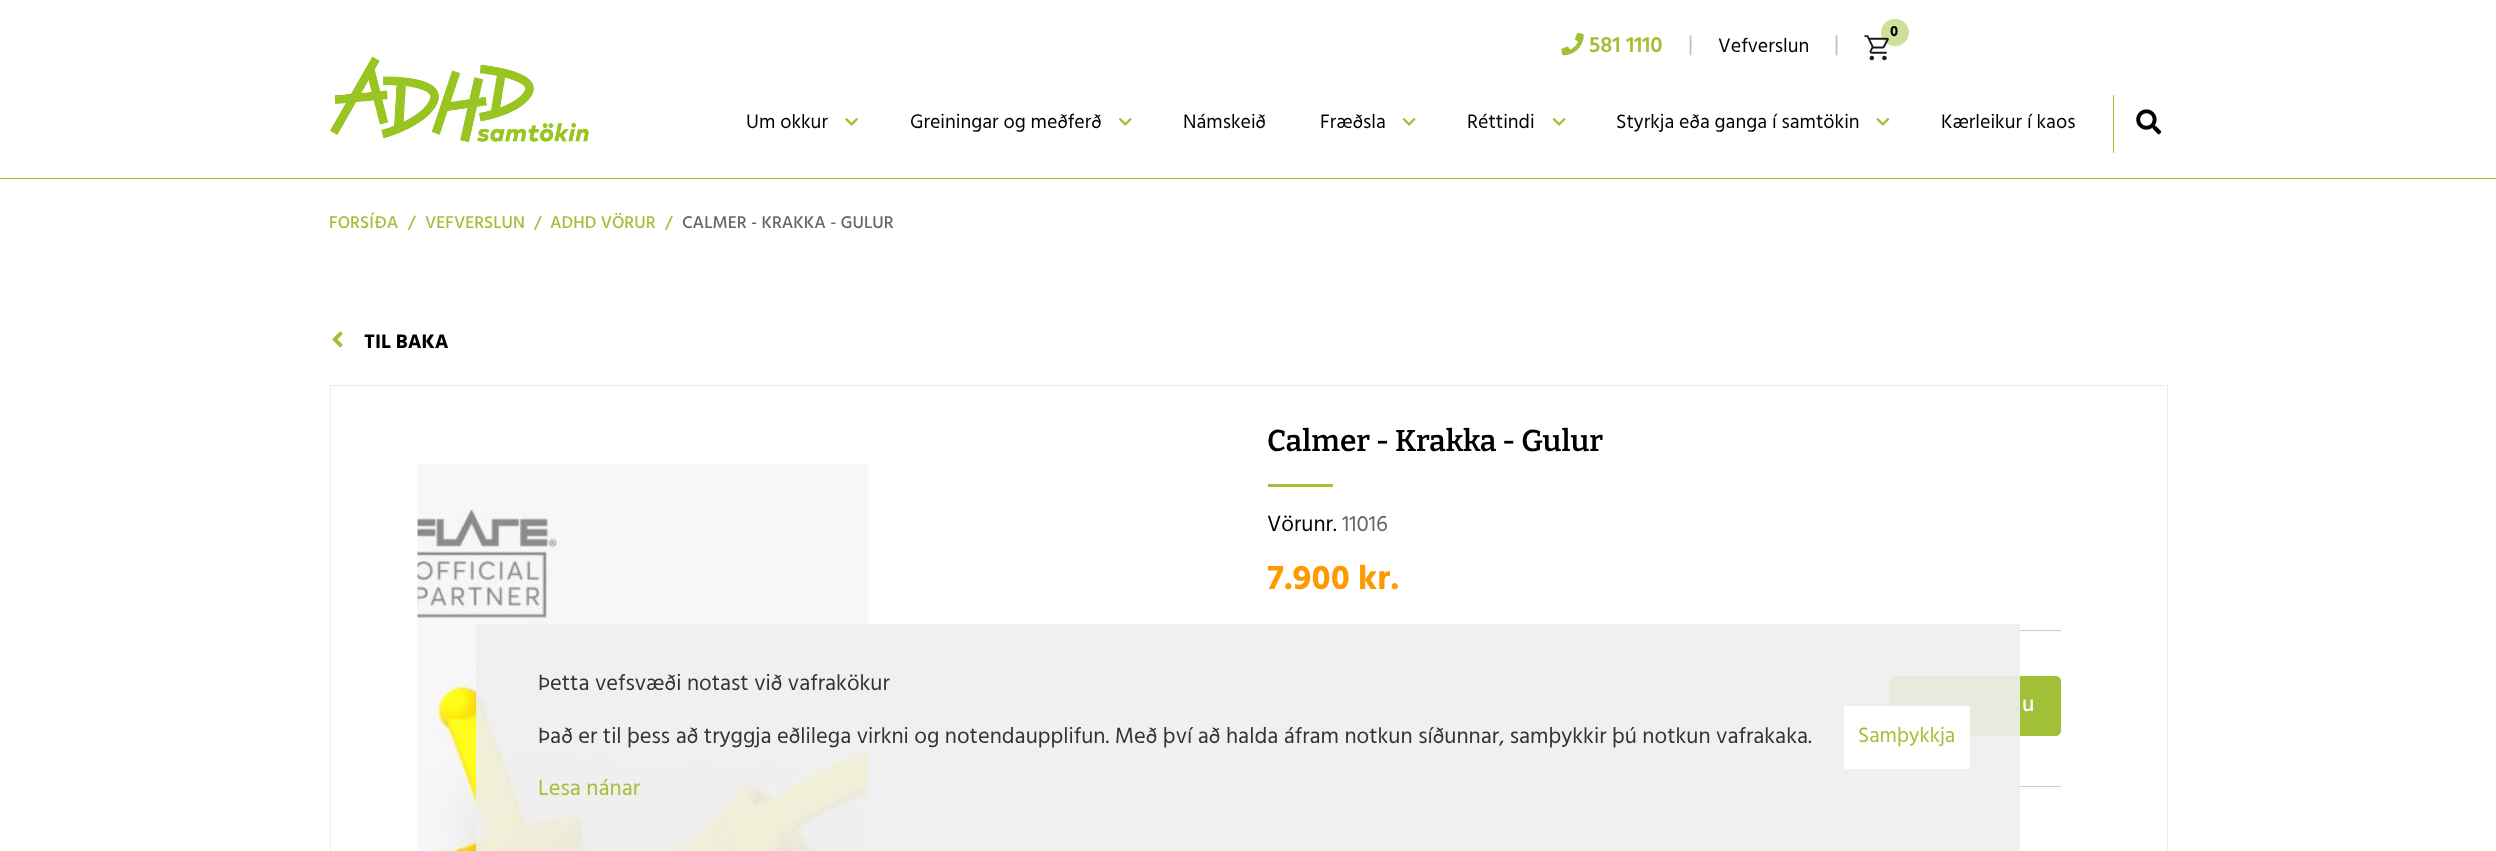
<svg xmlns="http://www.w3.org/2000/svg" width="2496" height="851">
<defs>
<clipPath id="clip1"><rect x="1268" y="549" width="793" height="81"/></clipPath>
</defs>
<rect width="100%" height="100%" fill="#fff"/>
<rect y="178" width="2496" height="1" fill="#a2c037"/>
<rect x="1881" y="19" width="28" height="27" rx="13.5" fill="#d0df9b"/>
<text x="1890" y="36" style="font-family:Hind;font-size:15px;font-weight:bold;fill:#000">0</text>
<image x="1864" y="35" width="25" height="26" href="media/1.png"/>
<image x="1561" y="32" width="23" height="24" href="media/2.png"/>
<text x="1589" y="52" style="font-family:Hind;font-size:22.5px;font-weight:600;fill:#a2c037">581 1110</text>
<text x="1688" y="51" style="font-family:Hind;font-size:22.5px;fill:#bdbdbd">|</text>
<text x="1718" y="52" style="font-family:Hind;font-size:20px;fill:#000">Vefverslun</text>
<text x="1834" y="51" style="font-family:Hind;font-size:22.5px;fill:#bdbdbd">|</text>
<image x="330" y="56" width="259" height="87" href="media/3.png"/>
<text x="746" y="128" style="font-family:Hind;font-size:20px;fill:#000">Um okkur</text>
<image x="845" y="118" width="13" height="8" href="media/4.png"/>
<text x="910" y="128" style="font-family:Hind;font-size:20px;fill:#000">Greiningar og meðferð</text>
<image x="1119" y="118" width="13" height="8" href="media/5.png"/>
<text x="1183" y="128" style="font-family:Hind;font-size:20px;fill:#000">Námskeið</text>
<text x="1320" y="128" style="font-family:Hind;font-size:20px;fill:#000">Fræðsla</text>
<image x="1402" y="118" width="14" height="8" href="media/6.png"/>
<text x="1467" y="128" style="font-family:Hind;font-size:20px;fill:#000">Réttindi</text>
<image x="1552" y="118" width="14" height="8" href="media/6.png"/>
<text x="1616" y="128" style="font-family:Hind;font-size:20px;fill:#000">Styrkja eða ganga í samtökin</text>
<image x="1876" y="118" width="14" height="8" href="media/7.png"/>
<text x="1941" y="128" style="font-family:Hind;font-size:20px;fill:#000">Kærleikur í kaos</text>
<rect x="2113" y="95" width="1" height="58" fill="#a2c037"/>
<image x="2136" y="109" width="26" height="26" href="media/8.png"/>
<text x="329" y="228" style="font-family:Hind;font-size:17.5px;font-weight:500;fill:#a2c037">FORSÍÐA</text>
<text x="408" y="228" style="font-family:Hind;font-size:17.5px;font-weight:500;fill:#a2c037">/</text>
<text x="425" y="228" style="font-family:Hind;font-size:17.5px;font-weight:500;fill:#a2c037">VEFVERSLUN</text>
<text x="534" y="228" style="font-family:Hind;font-size:17.5px;font-weight:500;fill:#a2c037">/</text>
<text x="550" y="228" style="font-family:Hind;font-size:17.5px;font-weight:500;fill:#a2c037">ADHD VÖRUR</text>
<text x="665" y="228" style="font-family:Hind;font-size:17.5px;font-weight:500;fill:#a2c037">/</text>
<text x="682" y="228" style="font-family:Hind;font-size:17.5px;font-weight:500;fill:#666">CALMER - KRAKKA - GULUR</text>
<image x="332" y="331" width="11" height="17" href="media/9.png"/>
<text x="364" y="348" style="font-family:Hind;font-size:20px;font-weight:bold;fill:#000">TIL BAKA</text>
<rect x="330.5" y="385.5" width="1837" height="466" fill="none" stroke="#ebebeb"/>
<image x="417" y="464" width="451" height="387" href="media/10.png"/>
<text x="1267" y="451" style="font-family:Bitter;font-size:30px;font-weight:600;fill:#000">Calmer - Krakka - Gulur</text>
<rect x="1268" y="484" width="65" height="3" fill="#a2c037"/>
<rect x="1268" y="786" width="793" height="1" fill="#ccc"/>
<text x="1267" y="531" style="font-family:Hind;font-size:22.5px;fill:#000">Vörunr.</text>
<text x="1342" y="531" style="font-family:Hind;font-size:22.5px;fill:#666">11016</text>
<rect x="1268" y="630" width="793" height="1" fill="#ccc"/>
<g clip-path="url(#clip1)">
<text x="1267" y="589" style="font-family:Hind;font-size:35px;font-weight:bold;fill:#f90">7.900</text>
</g>
<text x="1358" y="589" style="font-family:Hind;font-size:35px;font-weight:bold;fill:#f90">kr.</text>
<rect x="1889.5" y="676.5" width="171" height="59" rx="4.5" fill="#a2c037" stroke="#a2c037"/>
<text x="2022" y="711" style="font-family:Hind;font-size:22.5px;font-weight:500;fill:#fff">u</text>
<rect x="476" y="624" width="1544" height="227" fill="#eeeeeee6"/>
<text x="538" y="690" style="font-family:Hind;font-size:22.5px;fill:#333">Þetta vefsvæði notast við vafrakökur</text>
<text x="538" y="743" style="font-family:Hind;font-size:22.5px;fill:#333">Það er til þess að tryggja eðlilega virkni og notendaupplifun. Með því að halda áfram notkun síðunnar, samþykkir þú notkun vafrakaka.</text>
<text x="538" y="795" style="font-family:Hind;font-size:22.5px;fill:#a2c037">Lesa nánar</text>
<rect x="1844" y="706" width="126" height="63" fill="#fff"/>
<text x="1858" y="742" style="font-family:Hind;font-size:21.25px;fill:#a2c037">Samþykkja</text>
</svg>
